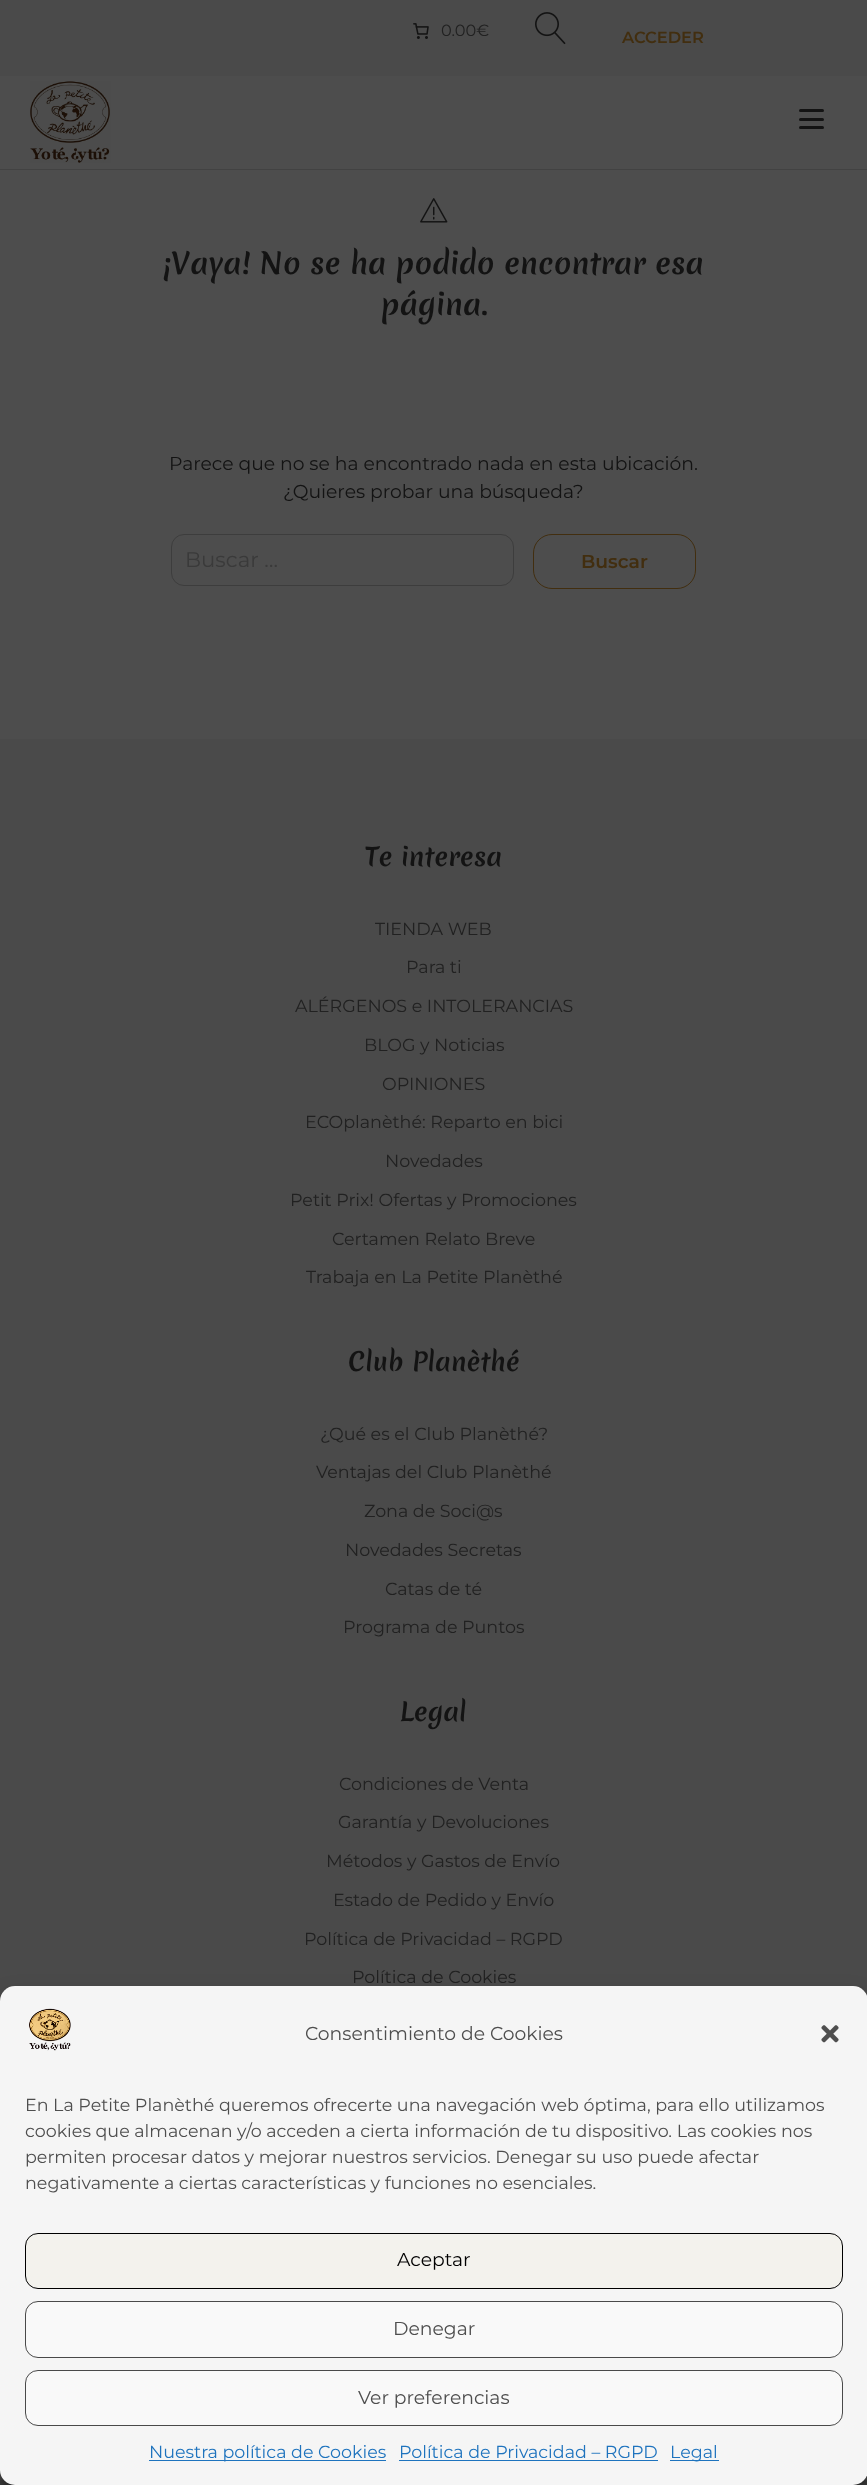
<svg xmlns="http://www.w3.org/2000/svg" width="867" height="2485">
<rect width="100%" height="100%" fill="#4d4d4d"/>
<rect width="867" height="76" fill="#4a4a4a"/>
<image x="413" y="23" width="16" height="16" href="media/1.png"/>
<text x="441" y="36" style="font-family:Montserrat;font-size:16.25px;fill:#212121">0.00€</text>
<image x="535" y="12" width="31" height="33" href="media/2.png"/>
<text x="622" y="43" style="font-family:Montserrat;font-size:16.25px;font-weight:600;fill:#422e0f">ACCEDER</text>
<image x="30" y="81" width="81" height="82" href="media/3.png"/>
<rect x="799" y="109" width="25" height="3" rx="1.5" fill="#131313"/>
<rect x="799" y="118" width="25" height="3" rx="1.5" fill="#131313"/>
<rect x="799" y="126" width="25" height="3" rx="1.5" fill="#131313"/>
<rect y="169" width="867" height="1" fill="#424242"/>
<image x="420" y="198" width="28" height="25" href="media/4.png"/>
<text x="163" y="274" style="font-family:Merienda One;font-size:28.75px;fill:#131313">¡Vaya! No se ha podido encontrar esa</text>
<text x="381" y="315" style="font-family:Merienda One;font-size:28.75px;fill:#131313">página.</text>
<text x="169" y="470" style="font-family:Montserrat;font-size:18.75px;fill:#131313">Parece que no se ha encontrado nada en esta ubicación.</text>
<text x="283" y="498" style="font-family:Montserrat;font-size:18.75px;fill:#131313">¿Quieres probar una búsqueda?</text>
<rect x="171.5" y="534.5" width="342" height="51" rx="12.5" fill="none" stroke="#3d3d3d"/>
<text x="185" y="567" style="font-family:Montserrat;font-size:21.25px;fill:#3a3a3a">Buscar …</text>
<rect x="533.5" y="534.5" width="162" height="54" rx="18.5" fill="none" stroke="#422e0f"/>
<text x="581" y="568" style="font-family:Montserrat;font-size:18.75px;font-weight:600;fill:#422e0f">Buscar</text>
<rect y="739" width="867" height="1741" fill="#4a4a4a"/>
<text x="365" y="866" style="font-family:Merienda One;font-size:25px;fill:#131313">Te interesa</text>
<text x="375" y="935" style="font-family:Montserrat;font-size:17.5px;fill:#212121">TIENDA WEB</text>
<text x="406" y="973" style="font-family:Montserrat;font-size:17.5px;fill:#212121">Para ti</text>
<text x="295" y="1012" style="font-family:Montserrat;font-size:17.5px;fill:#212121">ALÉRGENOS e INTOLERANCIAS</text>
<text x="364" y="1051" style="font-family:Montserrat;font-size:17.5px;fill:#212121">BLOG y Noticias</text>
<text x="382" y="1090" style="font-family:Montserrat;font-size:17.5px;fill:#212121">OPINIONES</text>
<text x="305" y="1128" style="font-family:Montserrat;font-size:17.5px;fill:#212121">ECOplanèthé: Reparto en bici</text>
<text x="385" y="1167" style="font-family:Montserrat;font-size:17.5px;fill:#212121">Novedades</text>
<text x="290" y="1206" style="font-family:Montserrat;font-size:17.5px;fill:#212121">Petit Prix! Ofertas y Promociones</text>
<text x="332" y="1245" style="font-family:Montserrat;font-size:17.5px;fill:#212121">Certamen Relato Breve</text>
<text x="306" y="1283" style="font-family:Montserrat;font-size:17.5px;fill:#212121">Trabaja en La Petite Planèthé</text>
<text x="348" y="1371" style="font-family:Merienda One;font-size:25px;fill:#131313">Club Planèthé</text>
<text x="320" y="1440" style="font-family:Montserrat;font-size:17.5px;fill:#212121">¿Qué es el Club Planèthé?</text>
<text x="316" y="1478" style="font-family:Montserrat;font-size:17.5px;fill:#212121">Ventajas del Club Planèthé</text>
<text x="364" y="1517" style="font-family:Montserrat;font-size:17.5px;fill:#212121">Zona de Soci@s</text>
<text x="345" y="1556" style="font-family:Montserrat;font-size:17.5px;fill:#212121">Novedades Secretas</text>
<text x="385" y="1595" style="font-family:Montserrat;font-size:17.5px;fill:#212121">Catas de té</text>
<text x="343" y="1633" style="font-family:Montserrat;font-size:17.5px;fill:#212121">Programa de Puntos</text>
<text x="400" y="1721" style="font-family:Merienda One;font-size:25px;fill:#131313">Legal</text>
<text x="339" y="1790" style="font-family:Montserrat;font-size:17.5px;fill:#212121">Condiciones de Venta</text>
<text x="338" y="1828" style="font-family:Montserrat;font-size:17.5px;fill:#212121">Garantía y Devoluciones</text>
<text x="326" y="1867" style="font-family:Montserrat;font-size:17.5px;fill:#212121">Métodos y Gastos de Envío</text>
<text x="333" y="1906" style="font-family:Montserrat;font-size:17.5px;fill:#212121">Estado de Pedido y Envío</text>
<text x="304" y="1945" style="font-family:Montserrat;font-size:17.5px;fill:#212121">Política de Privacidad – RGPD</text>
<text x="352" y="1983" style="font-family:Montserrat;font-size:17.5px;fill:#212121">Política de Cookies</text>
<rect y="2480" width="867" height="5" fill="#404040"/>
<rect y="1994" width="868" height="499" rx="15" fill="#0000003b" filter="blur(4px)"/>
<rect y="1999" width="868" height="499" rx="15" fill="#00000030" filter="blur(12.5px)"/>
<rect y="1986" width="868" height="499" rx="15" fill="#f5f5f5"/>
<image x="29" y="2008" width="42" height="43" href="media/5.png"/>
<text x="305" y="2040" style="font-family:Montserrat;font-size:18.75px;fill:#4e4e4e">Consentimiento de Cookies</text>
<image x="821" y="2025" width="18" height="18" href="media/6.png"/>
<text x="25" y="2111" style="font-family:Montserrat;font-size:17.5px;fill:#4e4e4e">En La Petite Planèthé queremos ofrecerte una navegación web óptima, para ello utilizamos</text>
<text x="25" y="2137" style="font-family:Montserrat;font-size:17.5px;fill:#4e4e4e">cookies que almacenan y/o acceden a cierta información de tu dispositivo. Las cookies nos</text>
<text x="25" y="2163" style="font-family:Montserrat;font-size:17.5px;fill:#4e4e4e">permiten procesar datos y mejorar nuestros servicios. Denegar su uso puede afectar</text>
<text x="25" y="2189" style="font-family:Montserrat;font-size:17.5px;fill:#4e4e4e">negativamente a ciertas características y funciones no esenciales.</text>
<rect x="25.5" y="2233.5" width="817" height="55" rx="12.5" fill="#f3f2ed" stroke="#000"/>
<text x="397" y="2266" style="font-family:Montserrat;font-size:18.75px;fill:#000">Aceptar</text>
<rect x="25.5" y="2301.5" width="817" height="56" rx="12.5" fill="#f9f9f9" stroke="#4a4a4a"/>
<text x="393" y="2335" style="font-family:Montserrat;font-size:18.75px;fill:#4e4e4e">Denegar</text>
<rect x="25.5" y="2370.5" width="817" height="55" rx="12.5" fill="#f9f9f9" stroke="#4a4a4a"/>
<text x="358" y="2404" style="font-family:Montserrat;font-size:18.75px;fill:#4e4e4e">Ver preferencias</text>
<rect x="149" y="2460" width="237" height="1" fill="#1e73be"/>
<text x="149" y="2458" style="font-family:Montserrat;font-size:17.5px;fill:#1e73be">Nuestra política de Cookies</text>
<text x="399" y="2458" style="font-family:Montserrat;font-size:17.5px;fill:#1e73be">Política de Privacidad – RGPD</text>
<rect x="399" y="2460" width="259" height="1" fill="#1e73be"/>
<rect x="670" y="2460" width="49" height="1" fill="#1e73be"/>
<text x="670" y="2458" style="font-family:Montserrat;font-size:17.5px;fill:#1e73be">Legal</text>
</svg>
